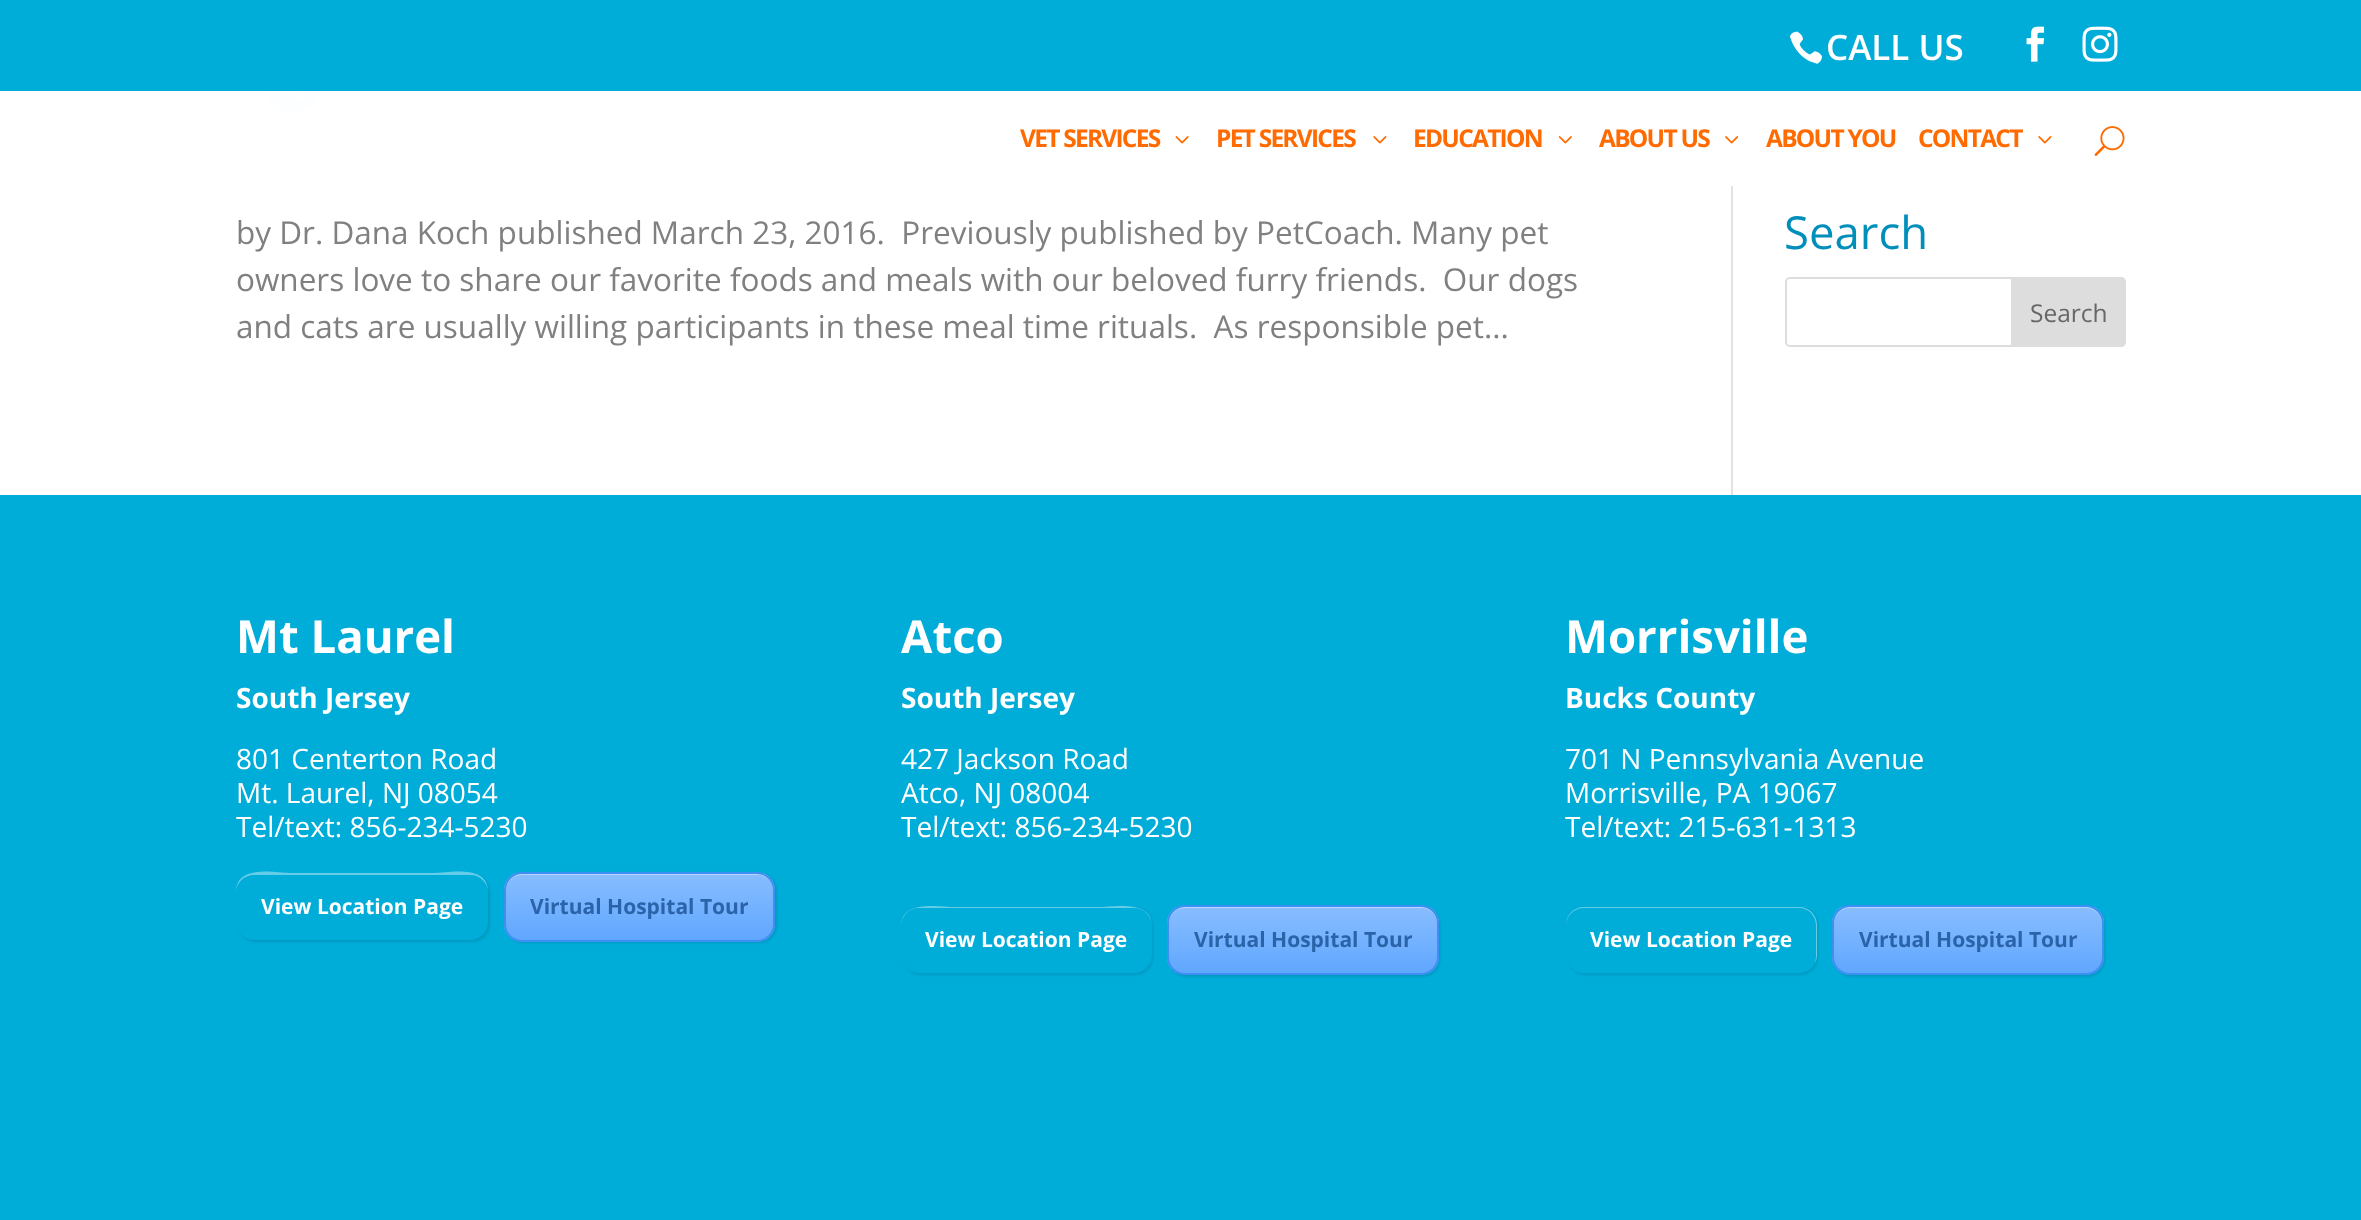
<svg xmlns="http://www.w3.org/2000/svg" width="2361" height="1220">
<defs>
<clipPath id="clip1"><path d="M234 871h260v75h-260zm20 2h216c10 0 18 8 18 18v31c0 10-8 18-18 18h-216c-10 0-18-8-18-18v-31c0-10 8-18 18-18z" clip-rule="evenodd"/></clipPath>
<clipPath id="clip2"><rect x="504" y="872" width="271" height="70" rx="18"/></clipPath>
<linearGradient id="g1" gradientUnits="userSpaceOnUse" x1="640" y1="873" x2="640" y2="940"><stop offset="0" stop-color="#88bdff"/><stop offset="1" stop-color="#60a7ff"/></linearGradient>
<clipPath id="clip3"><path d="M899 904h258v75h-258zm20 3h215c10 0 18 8 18 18v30c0 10-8 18-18 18h-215c-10 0-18-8-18-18v-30c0-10 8-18 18-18z" clip-rule="evenodd"/></clipPath>
<clipPath id="clip4"><rect x="1167" y="905" width="272" height="70" rx="18"/></clipPath>
<linearGradient id="g2" gradientUnits="userSpaceOnUse" x1="1303" y1="907" x2="1303" y2="973"><stop offset="0" stop-color="#88bdff"/><stop offset="1" stop-color="#60a7ff"/></linearGradient>
<clipPath id="clip5"><path d="M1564 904h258v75h-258zm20 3h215c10 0 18 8 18 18v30c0 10-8 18-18 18h-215c-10 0-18-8-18-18v-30c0-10 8-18 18-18z" clip-rule="evenodd"/></clipPath>
<clipPath id="clip6"><rect x="1832" y="905" width="272" height="70" rx="18"/></clipPath>
<linearGradient id="g3" gradientUnits="userSpaceOnUse" x1="1968" y1="907" x2="1968" y2="973"><stop offset="0" stop-color="#88bdff"/><stop offset="1" stop-color="#60a7ff"/></linearGradient>
</defs>
<rect width="100%" height="100%" fill="#fff"/>
<rect width="2361" height="91" fill="#00acd8"/>
<image x="1790" y="31" width="32" height="33" href="media/1.png"/>
<text x="1826" y="60" style="font-family:Open Sans;font-size:35px;font-weight:600;fill:#fff">CALL US</text>
<image x="2026" y="26" width="19" height="36" href="media/2.png"/>
<image x="2082" y="26" width="36" height="36" href="media/3.png"/>
<rect x="1731" y="91" width="2" height="404" fill="#e2e2e2"/>
<image x="264" y="91" width="57" height="22" href="media/9.png"/>
<rect x="1786" y="104" width="339" height="47" fill="none" stroke="#bbb" stroke-width="2"/>
<path d="M2103.5 124.5l7 7l7-7" fill="none" stroke="#4e4e4e" stroke-width="3.5"/>
<rect x="264" y="91" width="1862" height="95" fill="#fffffffc"/>
<text x="1020" y="147" style="font-family:Open Sans;font-size:24.5px;font-weight:bold;letter-spacing:-1.75px;fill:#ff6b00">VET SERVICES</text>
<image x="1175" y="136" width="14" height="8" href="media/4.png"/>
<text x="1216" y="147" style="font-family:Open Sans;font-size:24.5px;font-weight:bold;letter-spacing:-1.75px;fill:#ff6b00">PET SERVICES</text>
<image x="1373" y="136" width="14" height="8" href="media/5.png"/>
<text x="1413" y="147" style="font-family:Open Sans;font-size:24.5px;font-weight:bold;letter-spacing:-1.75px;fill:#ff6b00">EDUCATION</text>
<image x="1558" y="136" width="14" height="8" href="media/6.png"/>
<text x="1599" y="147" style="font-family:Open Sans;font-size:24.5px;font-weight:bold;letter-spacing:-1.75px;fill:#ff6b00">ABOUT US</text>
<image x="1725" y="136" width="14" height="8" href="media/7.png"/>
<text x="1766" y="147" style="font-family:Open Sans;font-size:24.5px;font-weight:bold;letter-spacing:-1.75px;fill:#ff6b00">ABOUT YOU</text>
<text x="1918" y="147" style="font-family:Open Sans;font-size:24.5px;font-weight:bold;letter-spacing:-1.75px;fill:#ff6b00">CONTACT</text>
<image x="2038" y="136" width="14" height="8" href="media/5.png"/>
<image x="2094" y="126" width="31" height="30" href="media/8.png"/>
<text x="236" y="244" style="font-family:Open Sans;font-size:31.5px;fill:#808080" xml:space="preserve">by Dr. Dana Koch published March 23, 2016.  Previously published by PetCoach. Many pet</text>
<text x="236" y="291" style="font-family:Open Sans;font-size:31.5px;fill:#808080" xml:space="preserve">owners love to share our favorite foods and meals with our beloved furry friends.  Our dogs</text>
<text x="236" y="338" style="font-family:Open Sans;font-size:31.5px;fill:#808080" xml:space="preserve">and cats are usually willing participants in these meal time rituals.  As responsible pet...</text>
<text x="1784" y="249" style="font-family:Open Sans;font-size:45.5px;fill:#008eba">Search</text>
<rect x="1786" y="278" width="339" height="68" rx="4" fill="none" stroke="#ddd" stroke-width="2"/>
<path d="M2012 278h109c2 0 4 2 4 4v60c0 2-2 4-4 4h-109z" fill="#ddd" stroke="#ddd" stroke-width="2"/>
<text x="2030" y="322" style="font-family:Open Sans;font-size:24.5px;fill:#666">Search</text>
<rect y="495" width="2361" height="725" fill="#00acd8"/>
<text x="236" y="653" style="font-family:Open Sans;font-size:45.5px;font-weight:bold;fill:#fff">Mt Laurel</text>
<text x="236" y="708" style="font-family:Open Sans;font-size:28px;font-weight:bold;fill:#fff">South Jersey</text>
<text x="236" y="769" style="font-family:Open Sans;font-size:28px;fill:#fff">801 Centerton Road</text>
<text x="236" y="803" style="font-family:Open Sans;font-size:28px;fill:#fff">Mt. Laurel, NJ 08054</text>
<text x="236" y="837" style="font-family:Open Sans;font-size:28px;fill:#fff">Tel/text: 856-234-5230</text>
<g clip-path="url(#clip1)">
<rect x="238" y="875" width="252" height="67" rx="18" fill="#0000001a" filter="blur(1px)"/>
</g>
<path d="M254 875h217c9 0 17 8 17 17c0-28-39-19-54-19h-144c-15 0-54-9-54 19c0-9 8-17 18-17z" fill="#66cde8"/>
<text x="261" y="914" style="font-family:Open Sans;font-size:21px;font-weight:bold;fill:#fff">View Location Page</text>
<rect x="506" y="873" width="271" height="70" rx="18" fill="#0000001a" filter="blur(1px)"/>
<g clip-path="url(#clip2)">
<rect x="504" y="873" width="271" height="67" fill="url(#g1)"/>
</g>
<path d="M522 875h236c8 0 16 7 16 16v-2c0-9-7-16-16-16h-236c-9 0-16 7-16 16v2c0-9 7-16 16-16z" fill="#ffffff66"/>
<rect x="505" y="873" width="269" height="68" rx="17" fill="none" stroke="#3e8ff4" stroke-width="2"/>
<text x="530" y="914" style="font-family:Open Sans;font-size:21px;font-weight:bold;fill:#2b63a8">Virtual Hospital Tour</text>
<text x="901" y="653" style="font-family:Open Sans;font-size:45.5px;font-weight:bold;fill:#fff">Atco</text>
<text x="901" y="708" style="font-family:Open Sans;font-size:28px;font-weight:bold;fill:#fff">South Jersey</text>
<text x="901" y="769" style="font-family:Open Sans;font-size:28px;fill:#fff">427 Jackson Road</text>
<text x="901" y="803" style="font-family:Open Sans;font-size:28px;fill:#fff">Atco, NJ 08004</text>
<text x="901" y="837" style="font-family:Open Sans;font-size:28px;fill:#fff">Tel/text: 856-234-5230</text>
<g clip-path="url(#clip3)">
<rect x="903" y="908" width="250" height="67" rx="18" fill="#0000001a" filter="blur(1px)"/>
</g>
<path d="M919 908h215c10 0 18 8 18 18c0-27-39-19-54-19h-143c-15 0-54-8-54 19c0-10 8-18 18-18z" fill="#66cde8"/>
<text x="925" y="947" style="font-family:Open Sans;font-size:21px;font-weight:bold;fill:#fff">View Location Page</text>
<rect x="1169" y="907" width="271" height="70" rx="18" fill="#0000001a" filter="blur(1px)"/>
<g clip-path="url(#clip4)">
<rect x="1167" y="907" width="272" height="66" fill="url(#g2)"/>
</g>
<path d="M1185 908h236c9 0 16 7 16 16v-1c0-9-7-16-16-16h-236c-9 0-16 7-16 16v1c0-9 7-16 16-16z" fill="#ffffff66"/>
<rect x="1168" y="906" width="270" height="68" rx="17" fill="none" stroke="#3e8ff4" stroke-width="2"/>
<text x="1194" y="947" style="font-family:Open Sans;font-size:21px;font-weight:bold;fill:#2b63a8">Virtual Hospital Tour</text>
<text x="1565" y="653" style="font-family:Open Sans;font-size:45.5px;font-weight:bold;fill:#fff">Morrisville</text>
<text x="1565" y="708" style="font-family:Open Sans;font-size:28px;font-weight:bold;fill:#fff">Bucks County</text>
<text x="1565" y="769" style="font-family:Open Sans;font-size:28px;fill:#fff">701 N Pennsylvania Avenue</text>
<text x="1565" y="803" style="font-family:Open Sans;font-size:28px;fill:#fff">Morrisville, PA 19067</text>
<text x="1565" y="837" style="font-family:Open Sans;font-size:28px;fill:#fff">Tel/text: 215-631-1313</text>
<g clip-path="url(#clip5)">
<rect x="1568" y="908" width="250" height="67" rx="18" fill="#0000001a" filter="blur(1px)"/>
</g>
<path d="M1584 908h215c10 0 17 8 17 18v31l-1 6c1-2 2-5 2-8v-30c0-10-8-18-18-18h-215c-10 0-18 8-18 18v1c0-10 8-18 18-18z" fill="#ffffff66"/>
<text x="1590" y="947" style="font-family:Open Sans;font-size:21px;font-weight:bold;fill:#fff">View Location Page</text>
<rect x="1834" y="907" width="271" height="70" rx="18" fill="#0000001a" filter="blur(1px)"/>
<g clip-path="url(#clip6)">
<rect x="1832" y="907" width="272" height="66" fill="url(#g3)"/>
</g>
<path d="M1850 908h236c9 0 16 7 16 16v-1c0-9-7-16-16-16h-236c-9 0-16 7-16 16v1c0-9 7-16 16-16z" fill="#ffffff66"/>
<rect x="1833" y="906" width="270" height="68" rx="17" fill="none" stroke="#3e8ff4" stroke-width="2"/>
<text x="1859" y="947" style="font-family:Open Sans;font-size:21px;font-weight:bold;fill:#2b63a8">Virtual Hospital Tour</text>
</svg>
